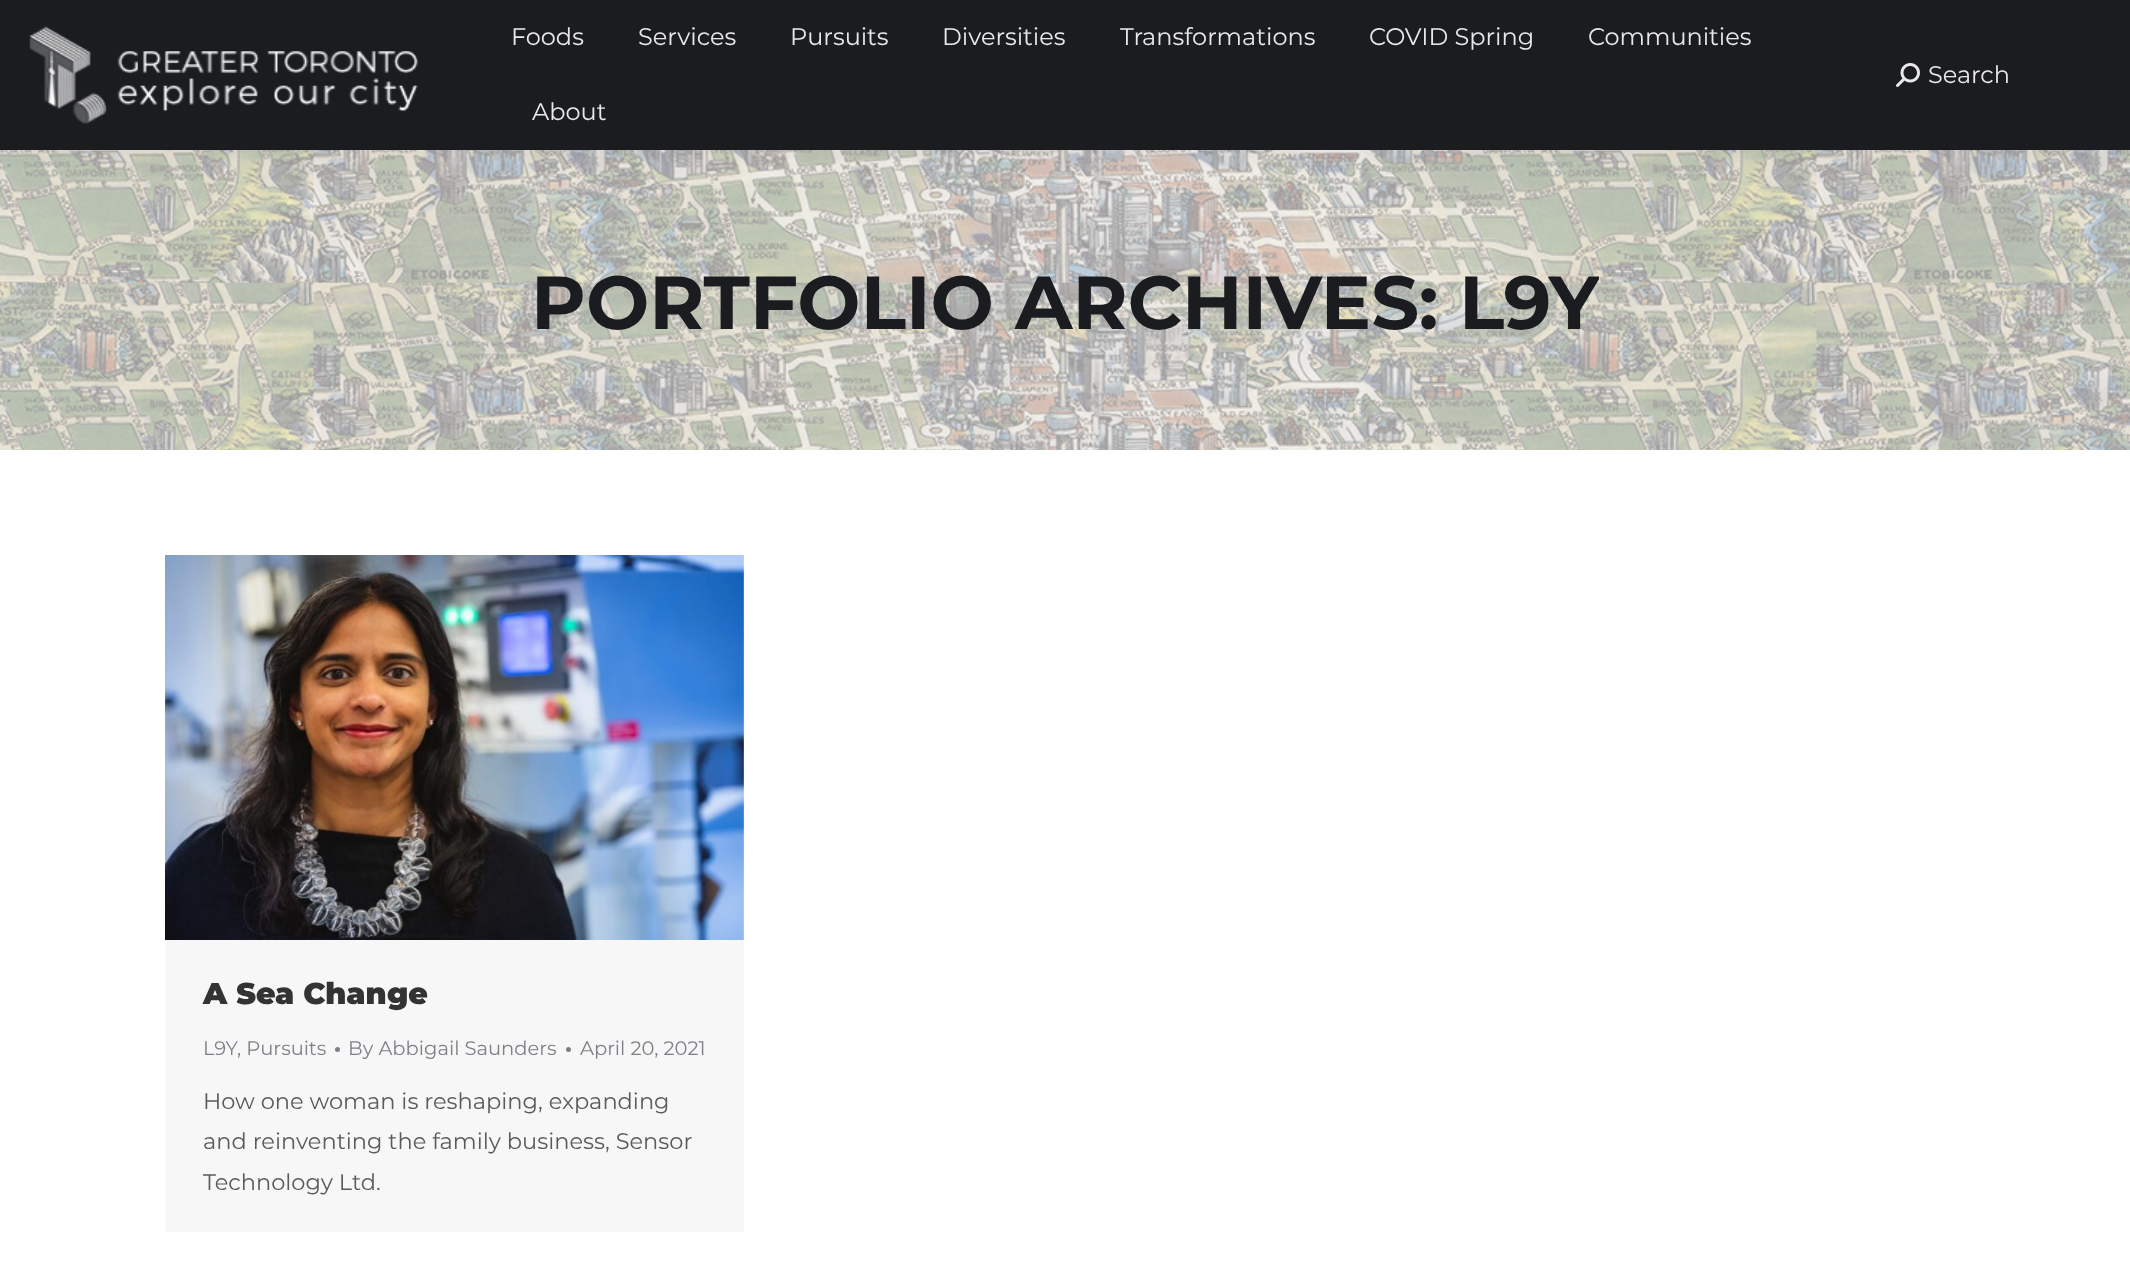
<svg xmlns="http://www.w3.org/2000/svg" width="2130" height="1271">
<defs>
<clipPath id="clip1"><rect x="531" y="260" width="1068" height="90"/></clipPath>
</defs>
<rect width="100%" height="100%" fill="#fff"/>
<image x="0" y="150" width="2130" height="300" href="media/3.png"/>
<rect x="-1" y="-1" width="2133" height="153" fill="#00000012" filter="blur(11px)"/>
<rect width="2130" height="150" fill="#1a1c20"/>
<image x="29" y="26" width="390" height="98" href="media/1.png"/>
<text x="511" y="45" style="font-family:Montserrat;font-size:24px;fill:#e8e8e8">Foods</text>
<text x="638" y="45" style="font-family:Montserrat;font-size:24px;fill:#e8e8e8">Services</text>
<text x="790" y="45" style="font-family:Montserrat;font-size:24px;fill:#e8e8e8">Pursuits</text>
<text x="942" y="45" style="font-family:Montserrat;font-size:24px;fill:#e8e8e8">Diversities</text>
<text x="1120" y="45" style="font-family:Montserrat;font-size:24px;fill:#e8e8e8">Transformations</text>
<text x="1369" y="45" style="font-family:Montserrat;font-size:24px;fill:#e8e8e8">COVID Spring</text>
<text x="1588" y="45" style="font-family:Montserrat;font-size:24px;fill:#e8e8e8">Communities</text>
<text x="532" y="120" style="font-family:Montserrat;font-size:24px;fill:#e8e8e8">About</text>
<image x="1896" y="63" width="24" height="24" href="media/2.png"/>
<text x="1928" y="83" style="font-family:Montserrat;font-size:24px;fill:#e8e8e8">Search</text>
<text x="531" y="329" style="font-family:Montserrat;font-size:75px;font-weight:bold;fill:#1a1c20">PORTFOLIO ARCHIVES:</text>
<g clip-path="url(#clip1)">
<text x="1459" y="329" style="font-family:Montserrat;font-size:75px;font-weight:bold;fill:#1a1c20">L9Y</text>
</g>
<rect x="165" y="555" width="579" height="677" fill="#f7f7f7"/>
<image x="165" y="555" width="579" height="385" href="media/4.png"/>
<text x="203" y="1004" style="font-family:Montserrat;font-size:30px;font-weight:900;fill:#333">A Sea Change</text>
<text x="203" y="1055" style="font-family:Montserrat;font-size:19.5px;fill:#7f7f87">L9Y</text>
<text x="237" y="1055" style="font-family:Montserrat;font-size:19.5px;fill:#7f7f87">, Pursuits</text>
<circle cx="337.5" cy="1049.5" r="2.5" fill="#7f7f87"/>
<text x="348" y="1055" style="font-family:Montserrat;font-size:19.5px;fill:#7f7f87">By Abbigail Saunders</text>
<circle cx="568.5" cy="1049.5" r="2.5" fill="#7f7f87"/>
<text x="580" y="1055" style="font-family:Montserrat;font-size:19.5px;fill:#7f7f87">April 20, 2021</text>
<text x="203" y="1109" style="font-family:Montserrat;font-size:22.5px;fill:#5b5b5d">How one woman is reshaping, expanding</text>
<text x="203" y="1149" style="font-family:Montserrat;font-size:22.5px;fill:#5b5b5d">and reinventing the family business, Sensor</text>
<text x="203" y="1190" style="font-family:Montserrat;font-size:22.5px;fill:#5b5b5d">Technology Ltd.</text>
</svg>
